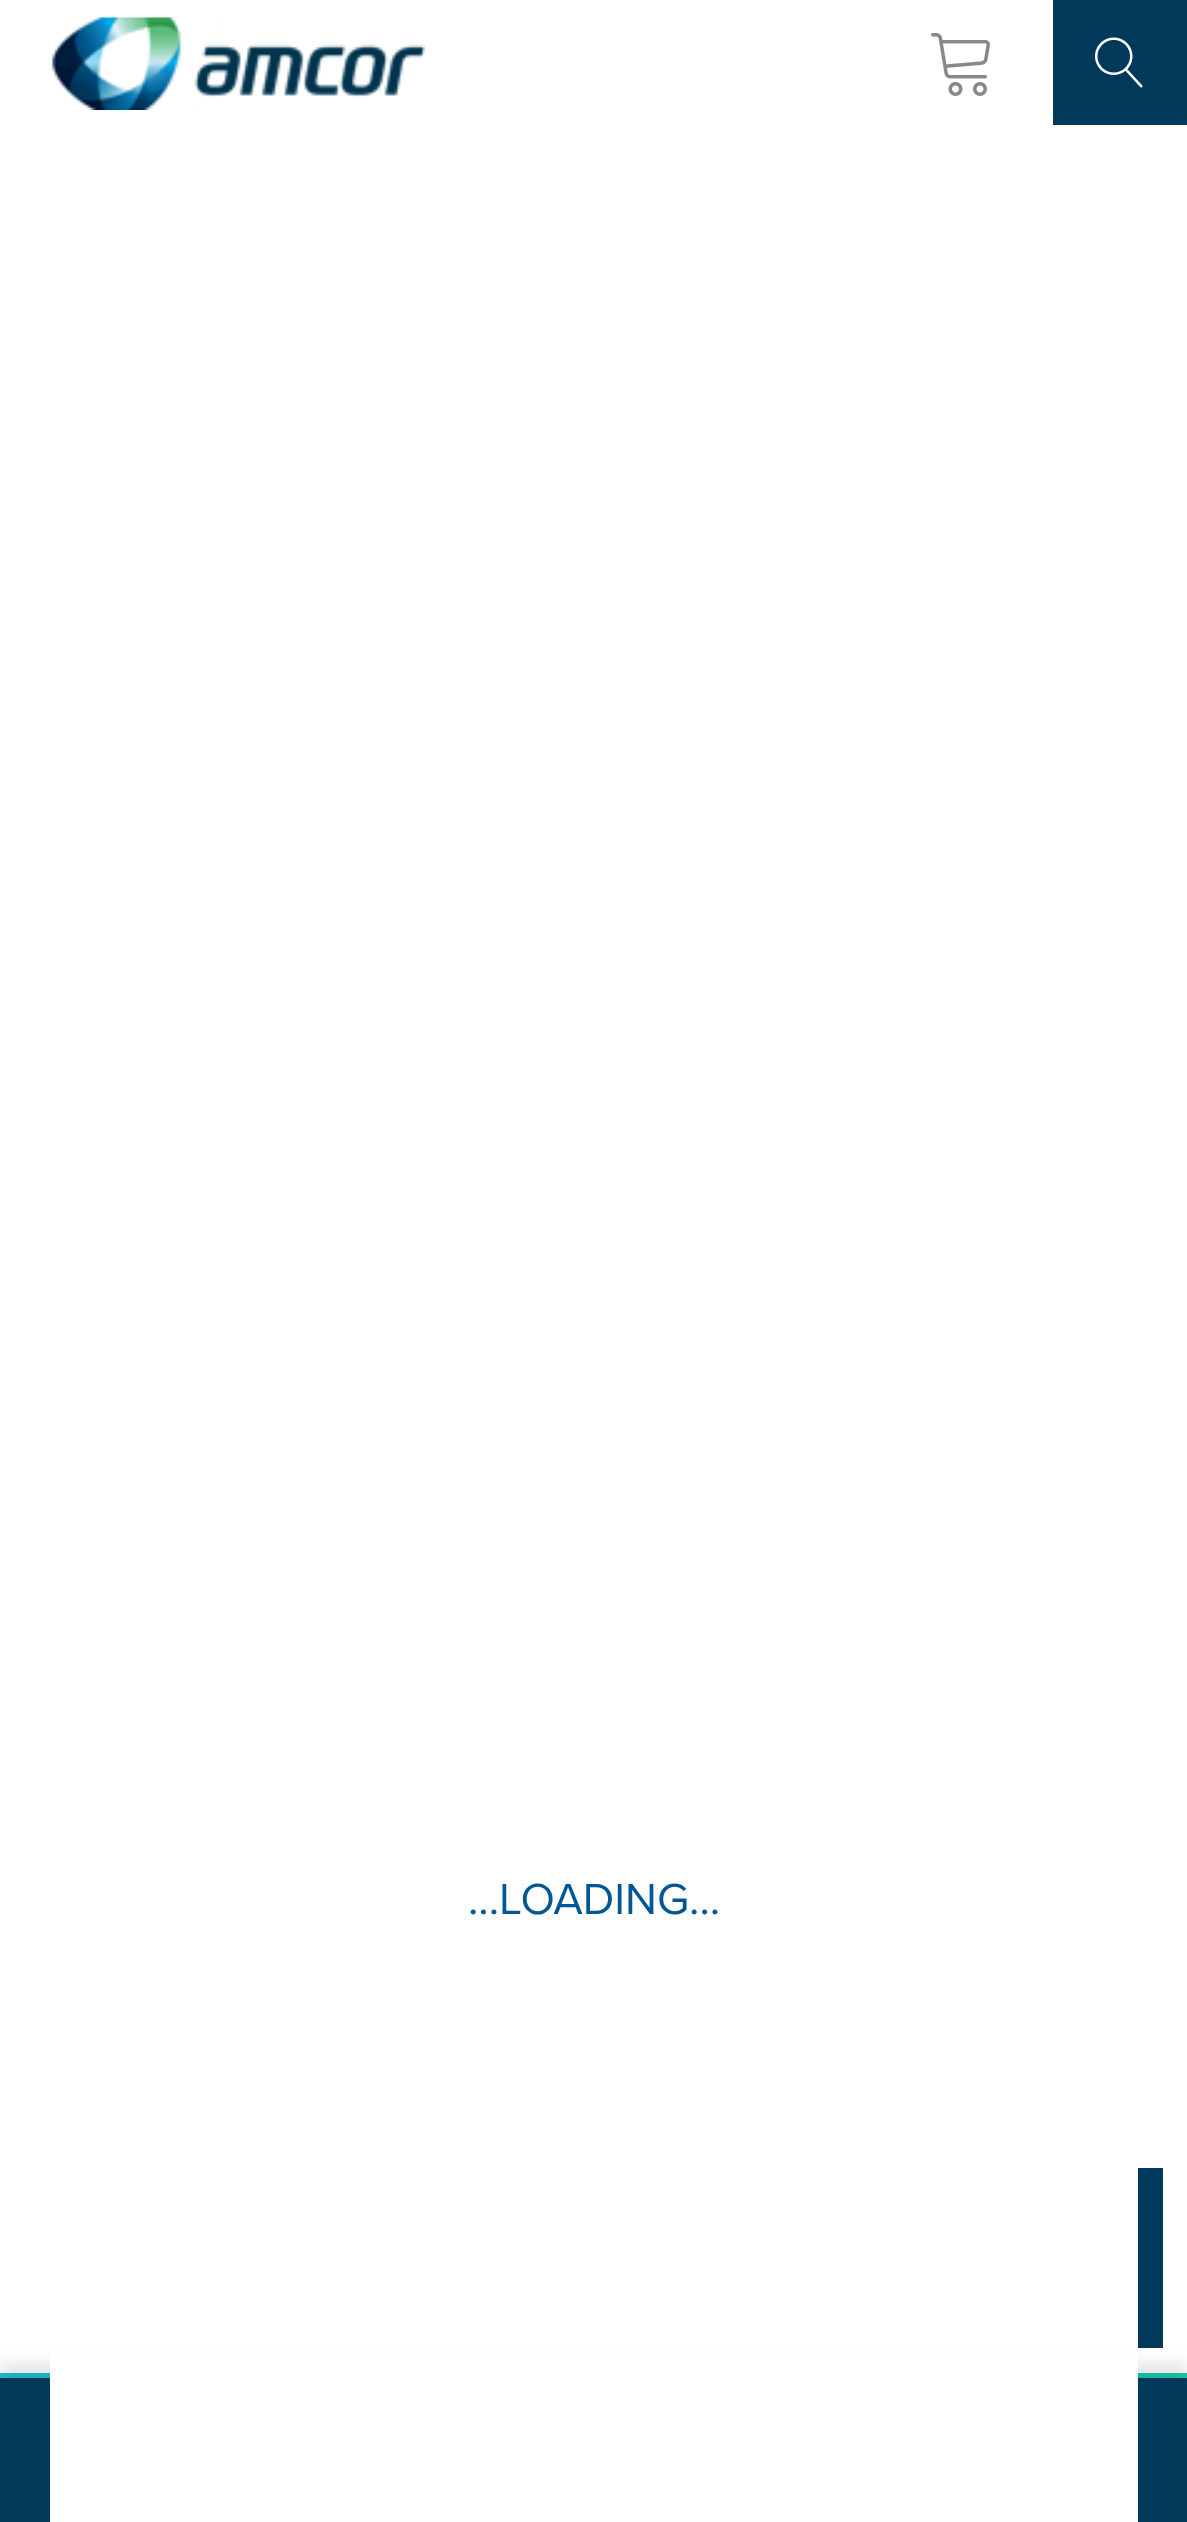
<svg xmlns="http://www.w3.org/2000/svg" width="1187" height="2522">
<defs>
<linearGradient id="g1" gradientUnits="userSpaceOnUse" x1="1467" y1="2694" x2="-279" y2="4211"><stop offset="0" stop-color="#1bcdac"/><stop offset="0.55" stop-color="#24bbee"/><stop offset="1" stop-color="#24bbee"/></linearGradient>
</defs>
<rect width="100%" height="100%" fill="#fff"/>
<image x="51" y="17" width="374" height="93" href="media/1.png"/>
<image x="931" y="33" width="59" height="63" href="media/2.png"/>
<rect x="1053" width="134" height="125" fill="#00395a"/>
<image x="1095" y="37" width="48" height="51" href="media/3.png"/>
<rect x="1138" y="2168" width="25" height="180" fill="#00395a"/>
<rect y="2373" width="1187" height="5" fill="url(#g1)"/>
<rect y="2363" width="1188" height="147" fill="#0000001a" filter="blur(7.5px)"/>
<rect y="2378" width="50" height="144" fill="#00395a"/>
<rect x="1138" y="2378" width="49" height="144" fill="#00395a"/>
<text x="468" y="1914" style="font-family:Proxima Nova;font-size:45px;fill:#005794">...LOADING...</text>
<rect x="50" y="2353" width="1088" height="167" fill="#fff"/>
</svg>
